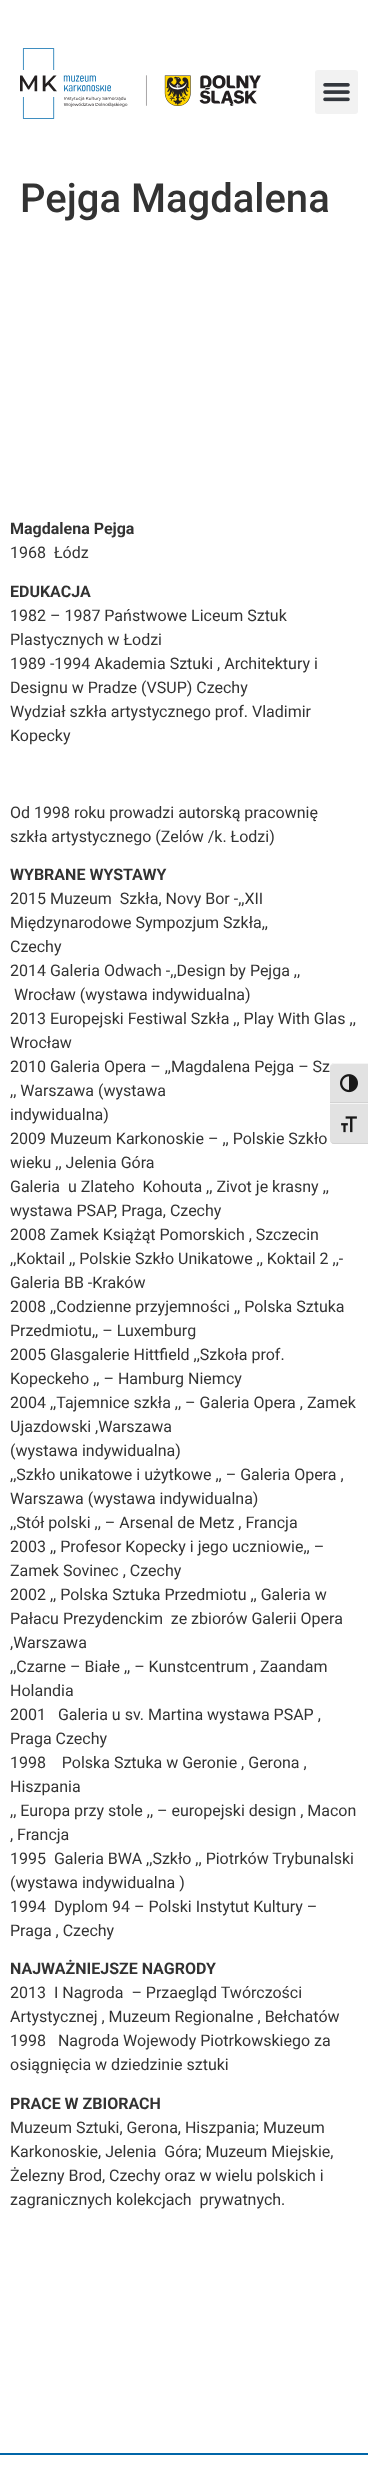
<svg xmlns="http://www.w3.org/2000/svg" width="368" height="2472">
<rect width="100%" height="100%" fill="#fff"/>
<image x="20" y="48" width="241" height="71" href="media/1.png"/>
<rect x="315" y="70" width="43" height="44" rx="3" fill="#f2f2f2"/>
<image x="323" y="83" width="27" height="19" href="media/2.png"/>
<text x="20" y="212" style="font-family:Roboto;font-size:40px;font-weight:500;fill:#333">Pejga Magdalena</text>
<text x="10" y="534" style="font-family:Roboto;font-size:16px;font-weight:bold;fill:#333">Magdalena Pejga</text>
<text x="10" y="558" style="font-family:Roboto;font-size:16px;fill:#333" xml:space="preserve">1968  Łódz</text>
<text x="10" y="597" style="font-family:Roboto;font-size:16px;font-weight:bold;fill:#333">EDUKACJA</text>
<text x="10" y="621" style="font-family:Roboto;font-size:16px;fill:#333">1982 – 1987 Państwowe Liceum Sztuk</text>
<text x="10" y="645" style="font-family:Roboto;font-size:16px;fill:#333">Plastycznych w Łodzi</text>
<text x="10" y="669" style="font-family:Roboto;font-size:16px;fill:#333">1989 -1994 Akademia Sztuki , Architektury i</text>
<text x="10" y="693" style="font-family:Roboto;font-size:16px;fill:#333">Designu w Pradze (VSUP) Czechy</text>
<text x="10" y="717" style="font-family:Roboto;font-size:16px;fill:#333">Wydział szkła artystycznego prof. Vladimir</text>
<text x="10" y="741" style="font-family:Roboto;font-size:16px;fill:#333">Kopecky</text>
<text x="10" y="818" style="font-family:Roboto;font-size:16px;fill:#333">Od 1998 roku prowadzi autorską pracownię</text>
<text x="10" y="842" style="font-family:Roboto;font-size:16px;fill:#333">szkła artystycznego (Zelów /k. Łodzi)</text>
<text x="10" y="880" style="font-family:Roboto;font-size:16px;font-weight:bold;fill:#333">WYBRANE WYSTAWY</text>
<text x="10" y="904" style="font-family:Roboto;font-size:16px;fill:#333" xml:space="preserve">2015 Muzeum  Szkła, Novy Bor -,,XII</text>
<text x="10" y="928" style="font-family:Roboto;font-size:16px;fill:#333">Międzynarodowe Sympozjum Szkła,,</text>
<text x="10" y="952" style="font-family:Roboto;font-size:16px;fill:#333">Czechy</text>
<text x="10" y="976" style="font-family:Roboto;font-size:16px;fill:#333">2014 Galeria Odwach -,,Design by Pejga ,,</text>
<text x="14" y="1000" style="font-family:Roboto;font-size:16px;fill:#333">Wrocław (wystawa indywidualna)</text>
<text x="10" y="1024" style="font-family:Roboto;font-size:16px;fill:#333">2013 Europejski Festiwal Szkła ,, Play With Glas ,,</text>
<text x="10" y="1048" style="font-family:Roboto;font-size:16px;fill:#333">Wrocław</text>
<text x="10" y="1072" style="font-family:Roboto;font-size:16px;fill:#333">2010 Galeria Opera – ,,Magdalena Pejga – Sz</text>
<text x="10" y="1096" style="font-family:Roboto;font-size:16px;fill:#333">,, Warszawa (wystawa</text>
<text x="10" y="1120" style="font-family:Roboto;font-size:16px;fill:#333">indywidualna)</text>
<text x="10" y="1144" style="font-family:Roboto;font-size:16px;fill:#333">2009 Muzeum Karkonoskie – ,, Polskie Szkło</text>
<text x="10" y="1168" style="font-family:Roboto;font-size:16px;fill:#333">wieku ,, Jelenia Góra</text>
<text x="10" y="1192" style="font-family:Roboto;font-size:16px;fill:#333" xml:space="preserve">Galeria  u Zlateho  Kohouta ,, Zivot je krasny ,,</text>
<text x="10" y="1216" style="font-family:Roboto;font-size:16px;fill:#333">wystawa PSAP, Praga, Czechy</text>
<text x="10" y="1240" style="font-family:Roboto;font-size:16px;fill:#333">2008 Zamek Książąt Pomorskich , Szczecin</text>
<text x="10" y="1264" style="font-family:Roboto;font-size:16px;fill:#333">,,Koktail ,, Polskie Szkło Unikatowe ,, Koktail 2 ,,-</text>
<text x="10" y="1288" style="font-family:Roboto;font-size:16px;fill:#333">Galeria BB -Kraków</text>
<text x="10" y="1312" style="font-family:Roboto;font-size:16px;fill:#333">2008 ,,Codzienne przyjemności ,, Polska Sztuka</text>
<text x="10" y="1336" style="font-family:Roboto;font-size:16px;fill:#333">Przedmiotu,, – Luxemburg</text>
<text x="10" y="1360" style="font-family:Roboto;font-size:16px;fill:#333">2005 Glasgalerie Hittfield ,,Szkoła prof.</text>
<text x="10" y="1384" style="font-family:Roboto;font-size:16px;fill:#333">Kopeckeho ,, – Hamburg Niemcy</text>
<text x="10" y="1408" style="font-family:Roboto;font-size:16px;fill:#333">2004 ,,Tajemnice szkła ,, – Galeria Opera , Zamek</text>
<text x="10" y="1432" style="font-family:Roboto;font-size:16px;fill:#333">Ujazdowski ,Warszawa</text>
<text x="10" y="1456" style="font-family:Roboto;font-size:16px;fill:#333">(wystawa indywidualna)</text>
<text x="10" y="1480" style="font-family:Roboto;font-size:16px;fill:#333">,,Szkło unikatowe i użytkowe ,, – Galeria Opera ,</text>
<text x="10" y="1504" style="font-family:Roboto;font-size:16px;fill:#333">Warszawa (wystawa indywidualna)</text>
<text x="10" y="1528" style="font-family:Roboto;font-size:16px;fill:#333">,,Stół polski ,, – Arsenal de Metz , Francja</text>
<text x="10" y="1552" style="font-family:Roboto;font-size:16px;fill:#333">2003 ,, Profesor Kopecky i jego uczniowie,, –</text>
<text x="10" y="1576" style="font-family:Roboto;font-size:16px;fill:#333">Zamek Sovinec , Czechy</text>
<text x="10" y="1600" style="font-family:Roboto;font-size:16px;fill:#333">2002 ,, Polska Sztuka Przedmiotu ,, Galeria w</text>
<text x="10" y="1624" style="font-family:Roboto;font-size:16px;fill:#333" xml:space="preserve">Pałacu Prezydenckim  ze zbiorów Galerii Opera</text>
<text x="10" y="1648" style="font-family:Roboto;font-size:16px;fill:#333">,Warszawa</text>
<text x="10" y="1672" style="font-family:Roboto;font-size:16px;fill:#333">,,Czarne – Białe ,, – Kunstcentrum , Zaandam</text>
<text x="10" y="1696" style="font-family:Roboto;font-size:16px;fill:#333">Holandia</text>
<text x="10" y="1720" style="font-family:Roboto;font-size:16px;fill:#333" xml:space="preserve">2001   Galeria u sv. Martina wystawa PSAP ,</text>
<text x="10" y="1744" style="font-family:Roboto;font-size:16px;fill:#333">Praga Czechy</text>
<text x="10" y="1768" style="font-family:Roboto;font-size:16px;fill:#333" xml:space="preserve">1998    Polska Sztuka w Geronie , Gerona ,</text>
<text x="10" y="1792" style="font-family:Roboto;font-size:16px;fill:#333">Hiszpania</text>
<text x="10" y="1816" style="font-family:Roboto;font-size:16px;fill:#333">,, Europa przy stole ,, – europejski design , Macon</text>
<text x="10" y="1840" style="font-family:Roboto;font-size:16px;fill:#333">, Francja</text>
<text x="10" y="1864" style="font-family:Roboto;font-size:16px;fill:#333" xml:space="preserve">1995  Galeria BWA ,,Szkło ,, Piotrków Trybunalski</text>
<text x="10" y="1888" style="font-family:Roboto;font-size:16px;fill:#333">(wystawa indywidualna )</text>
<text x="10" y="1912" style="font-family:Roboto;font-size:16px;fill:#333" xml:space="preserve">1994  Dyplom 94 – Polski Instytut Kultury –</text>
<text x="10" y="1936" style="font-family:Roboto;font-size:16px;fill:#333">Praga , Czechy</text>
<text x="10" y="1974" style="font-family:Roboto;font-size:16px;font-weight:bold;fill:#333">NAJWAŻNIEJSZE NAGRODY</text>
<text x="10" y="1998" style="font-family:Roboto;font-size:16px;fill:#333" xml:space="preserve">2013  I Nagroda  – Przaegląd Twórczości</text>
<text x="10" y="2022" style="font-family:Roboto;font-size:16px;fill:#333">Artystycznej , Muzeum Regionalne , Bełchatów</text>
<text x="10" y="2046" style="font-family:Roboto;font-size:16px;fill:#333" xml:space="preserve">1998   Nagroda Wojewody Piotrkowskiego za</text>
<text x="10" y="2070" style="font-family:Roboto;font-size:16px;fill:#333">osiągnięcia w dziedzinie sztuki</text>
<text x="10" y="2109" style="font-family:Roboto;font-size:16px;font-weight:bold;fill:#333">PRACE W ZBIORACH</text>
<text x="10" y="2133" style="font-family:Roboto;font-size:16px;fill:#333">Muzeum Sztuki, Gerona, Hiszpania; Muzeum</text>
<text x="10" y="2157" style="font-family:Roboto;font-size:16px;fill:#333" xml:space="preserve">Karkonoskie, Jelenia  Góra; Muzeum Miejskie,</text>
<text x="10" y="2181" style="font-family:Roboto;font-size:16px;fill:#333">Żelezny Brod, Czechy oraz w wielu polskich i</text>
<text x="10" y="2205" style="font-family:Roboto;font-size:16px;fill:#333" xml:space="preserve">zagranicznych kolekcjach  prywatnych.</text>
<path d="M334 1063h34v40h-38v-36c0-2 2-4 4-4z" fill="#e2e2e2"/>
<path d="M334 1064h34v-1h-34c-2 0-4 2-4 4c0-2 2-3 4-3z" fill="#f5f5f5"/>
<rect x="330" y="1102" width="38" height="1" fill="#d2d2d2"/>
<image x="340" y="1074" width="18" height="19" href="media/3.png"/>
<path d="M330 1103h38v41h-34c-2 0-4-2-4-4z" fill="#e2e2e2"/>
<rect x="330" y="1103" width="38" height="1" fill="#f5f5f5"/>
<path d="M368 1144v-1h-34c-2 0-4-1-4-3c0 2 2 4 4 4z" fill="#d2d2d2"/>
<image x="341" y="1116" width="16" height="17" href="media/4.png"/>
<rect y="2453" width="368" height="2" fill="#0066a9"/>
</svg>
